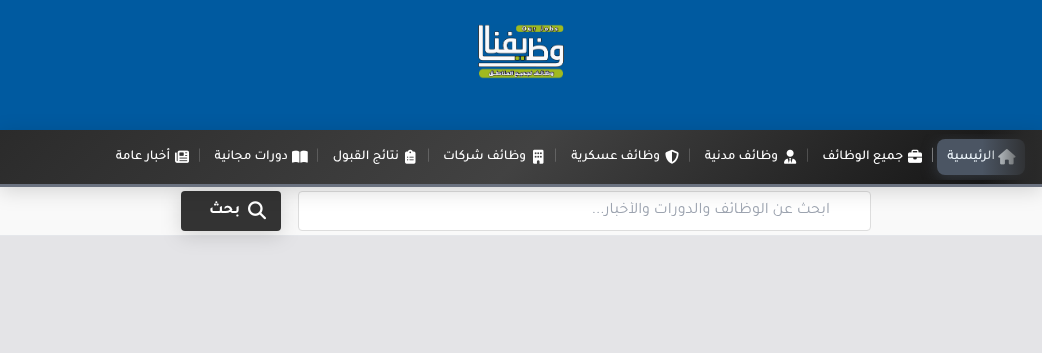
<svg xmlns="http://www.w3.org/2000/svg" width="1042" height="353">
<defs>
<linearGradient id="g1" gradientUnits="userSpaceOnUse" x1="247" y1="-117" x2="795" y2="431"><stop offset="0" stop-color="#2b2b2b"/><stop offset="0.5" stop-color="#424242"/><stop offset="1" stop-color="#111"/></linearGradient>
<clipPath id="clip1"><rect x="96" y="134" width="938" height="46"/></clipPath>
<linearGradient id="g2" gradientUnits="userSpaceOnUse" x1="982" y1="157" x2="1042" y2="157"><stop offset="0" stop-color="#2b2b2b" stop-opacity="0"/><stop offset="0.7" stop-color="#2b2b2b" stop-opacity="0.8"/><stop offset="1" stop-color="#2b2b2b" stop-opacity="0.95"/></linearGradient>
<clipPath id="clip2"><rect x="330" y="202" width="500" height="19"/></clipPath>
</defs>
<rect width="100%" height="100%" fill="#e4e4e7"/>
<rect width="1042" height="130" fill="#005aa0"/>
<image x="478" y="24" width="86" height="55" href="media/1.png"/>
<rect y="187" width="1042" height="48" fill="#f9f9f9"/>
<rect y="235" width="1042" height="1" fill="#e5e7eb"/>
<rect x="181" y="195" width="100" height="40" rx="4" fill="#00000026" filter="blur(10px)"/>
<rect x="298.5" y="191.5" width="572" height="39" rx="3.5" fill="#fff" stroke="#ddd"/>
<rect x="181" y="191" width="100" height="40" rx="4" fill="#333"/>
<image x="248" y="201" width="18" height="19" href="media/10.png"/>
<rect y="134" width="1042" height="57" fill="#00000026" filter="blur(10px)"/>
<rect y="130" width="1042" height="54" fill="url(#g1)"/>
<rect y="184" width="1042" height="3" fill="#6b7280"/>
<g clip-path="url(#clip1)">
<rect x="937" y="143" width="88" height="36" rx="8" fill="#4b556380" filter="blur(7.5px)"/>
</g>
<rect x="937" y="139" width="88" height="36" rx="8" fill="#4b5563"/>
<image x="998" y="149" width="18" height="16" href="media/2.png"/>
<text x="995" y="159" style="font-family:Tajawal;font-size:13.5px;font-weight:500;direction:rtl;fill:#f0f9ff">الرئيسية</text>
<rect x="983" y="130" width="59" height="54" fill="url(#g2)"/>
<text x="931" y="159" style="font-family:Tajawal;font-size:17px;font-weight:200;fill:#d3d3d4">|</text>
<image x="908" y="149" width="14" height="14" href="media/3.png"/>
<text x="903" y="159" style="font-family:Tajawal;font-size:13.5px;font-weight:500;direction:rtl;fill:#fff">جميع الوظائف</text>
<text x="806" y="159" style="font-family:Tajawal;font-size:16px;font-weight:200;fill:#7e7e7e">|</text>
<image x="784" y="149" width="13" height="15" href="media/4.png"/>
<text x="778" y="159" style="font-family:Tajawal;font-size:13.5px;font-weight:500;direction:rtl;fill:#fff">وظائف مدنية</text>
<text x="688" y="159" style="font-family:Tajawal;font-size:16px;font-weight:200;fill:#858585">|</text>
<image x="665" y="149" width="14" height="15" href="media/5.png"/>
<text x="660" y="159" style="font-family:Tajawal;font-size:13.5px;font-weight:500;direction:rtl;fill:#fff">وظائف عسكرية</text>
<text x="554" y="159" style="font-family:Tajawal;font-size:16px;font-weight:200;fill:#8c8c8c">|</text>
<image x="533" y="149" width="11" height="15" href="media/6.png"/>
<text x="526" y="159" style="font-family:Tajawal;font-size:13.5px;font-weight:500;direction:rtl;fill:#fff">وظائف شركات</text>
<text x="427" y="159" style="font-family:Tajawal;font-size:16px;font-weight:200;fill:#8c8c8c">|</text>
<image x="405" y="149" width="11" height="15" href="media/7.png"/>
<text x="399" y="159" style="font-family:Tajawal;font-size:13.5px;font-weight:500;direction:rtl;fill:#fff">نتائج القبول</text>
<text x="316" y="159" style="font-family:Tajawal;font-size:16px;font-weight:200;fill:#858585">|</text>
<image x="292" y="150" width="16" height="13" href="media/8.png"/>
<text x="288" y="159" style="font-family:Tajawal;font-size:13.5px;font-weight:500;direction:rtl;fill:#fff">دورات مجانية</text>
<text x="198" y="159" style="font-family:Tajawal;font-size:16px;font-weight:200;fill:#858585">|</text>
<image x="175" y="150" width="14" height="13" href="media/9.png"/>
<text x="170" y="159" style="font-family:Tajawal;font-size:13.5px;font-weight:500;direction:rtl;fill:#fff">أخبار عامة</text>
<g clip-path="url(#clip2)">
<text x="830" y="213" style="font-family:Tajawal;font-size:16px;direction:rtl;fill:#9ca3af">ابحث عن الوظائف والدورات والأخبار...</text>
</g>
<text x="240" y="213" style="font-family:Tajawal;font-size:16px;font-weight:bold;direction:rtl;fill:#fff">بحث</text>
</svg>
